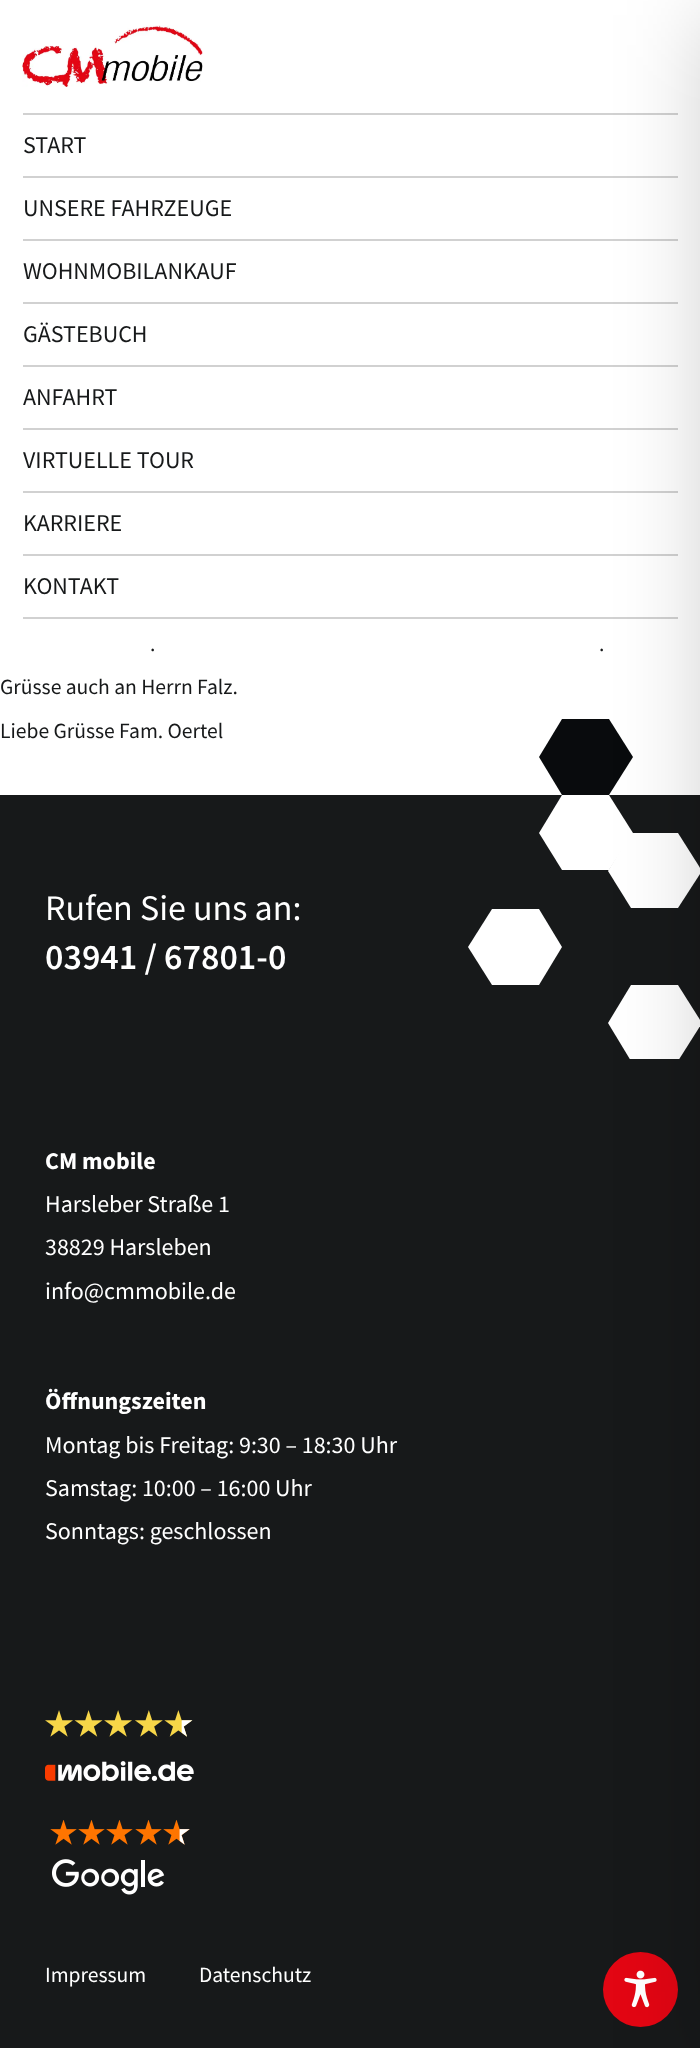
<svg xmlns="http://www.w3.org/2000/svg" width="700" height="2048">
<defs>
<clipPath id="clip1"><rect x="468" y="719" width="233" height="340"/></clipPath>
</defs>
<rect width="100%" height="100%" fill="#fff"/>
<image x="22" y="25" width="181" height="62" href="media/1.png"/>
<rect x="23" y="617" width="655" height="2" fill="#d1d1d1"/>
<rect x="23" y="113" width="655" height="2" fill="#d1d1d1"/>
<text x="23" y="153" style="font-family:Source Sans Pro;font-size:24px;fill:#17191a">START</text>
<rect x="23" y="176" width="655" height="2" fill="#d1d1d1"/>
<text x="23" y="216" style="font-family:Source Sans Pro;font-size:24px;fill:#17191a">UNSERE FAHRZEUGE</text>
<rect x="23" y="239" width="655" height="2" fill="#d1d1d1"/>
<text x="23" y="279" style="font-family:Source Sans Pro;font-size:24px;fill:#17191a">WOHNMOBILANKAUF</text>
<rect x="23" y="302" width="655" height="2" fill="#d1d1d1"/>
<text x="23" y="342" style="font-family:Source Sans Pro;font-size:24px;fill:#17191a">GÄSTEBUCH</text>
<rect x="23" y="365" width="655" height="2" fill="#d1d1d1"/>
<text x="23" y="405" style="font-family:Source Sans Pro;font-size:24px;fill:#17191a">ANFAHRT</text>
<rect x="23" y="428" width="655" height="2" fill="#d1d1d1"/>
<text x="23" y="468" style="font-family:Source Sans Pro;font-size:24px;fill:#17191a">VIRTUELLE TOUR</text>
<rect x="23" y="491" width="655" height="2" fill="#d1d1d1"/>
<text x="23" y="531" style="font-family:Source Sans Pro;font-size:24px;fill:#17191a">KARRIERE</text>
<rect x="23" y="554" width="655" height="2" fill="#d1d1d1"/>
<text x="23" y="594" style="font-family:Source Sans Pro;font-size:24px;fill:#17191a">KONTAKT</text>
<text x="150" y="651" style="font-family:Source Sans Pro;font-size:21.6px;fill:#17191a">.</text>
<text x="599" y="651" style="font-family:Source Sans Pro;font-size:21.6px;fill:#17191a">.</text>
<text x="0" y="694" style="font-family:Source Sans Pro;font-size:21.6px;fill:#17191a">Grüsse auch an Herrn Falz.</text>
<text x="0" y="738" style="font-family:Source Sans Pro;font-size:21.6px;fill:#17191a">Liebe Grüsse Fam. Oertel</text>
<rect y="795" width="700" height="1253" fill="#17191a"/>
<text x="45" y="920" style="font-family:Source Sans Pro;font-size:36px;fill:#fff">Rufen Sie uns an:</text>
<text x="45" y="969" style="font-family:Source Sans Pro;font-size:36px;font-weight:600;fill:#fff">03941 / 67801-0</text>
<text x="45" y="1169" style="font-family:Source Sans Pro;font-size:24px;font-weight:bold;fill:#fff">CM mobile</text>
<text x="45" y="1212" style="font-family:Source Sans Pro;font-size:24px;fill:#fff">Harsleber Straße 1</text>
<text x="45" y="1255" style="font-family:Source Sans Pro;font-size:24px;fill:#fff">38829 Harsleben</text>
<text x="45" y="1299" style="font-family:Source Sans Pro;font-size:24px;fill:#fff">info@cmmobile.de</text>
<text x="45" y="1409" style="font-family:Source Sans Pro;font-size:24px;font-weight:bold;fill:#fff">Öffnungszeiten</text>
<text x="45" y="1453" style="font-family:Source Sans Pro;font-size:24px;fill:#fff">Montag bis Freitag: 9:30 – 18:30 Uhr</text>
<text x="45" y="1496" style="font-family:Source Sans Pro;font-size:24px;fill:#fff">Samstag: 10:00 – 16:00 Uhr</text>
<text x="45" y="1539" style="font-family:Source Sans Pro;font-size:24px;fill:#fff">Sonntags: geschlossen</text>
<image x="45" y="1710" width="149" height="72" href="media/2.png"/>
<image x="50" y="1820" width="140" height="75" href="media/3.png"/>
<text x="45" y="1982" style="font-family:Source Sans Pro;font-size:21.6px;fill:#fff">Impressum</text>
<text x="199" y="1982" style="font-family:Source Sans Pro;font-size:21.6px;fill:#fff">Datenschutz</text>
<path d="M631 833l-23 38l23 37h47l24-37l-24-38z" fill="#fff"/>
<g clip-path="url(#clip1)">
<path d="M631 985l-23 38l23 38h47l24-38l-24-38z" fill="#fff"/>
</g>
<path d="M562 795l-23 38l23 37h47l24-37l-24-38z" fill="#fff"/>
<path d="M562 719l-23 38l23 38h47l24-38l-24-38z" fill="#090b0d"/>
<path d="M492 909l-24 38l24 38h47l23-38l-23-38z" fill="#fff"/>
<circle cx="640.5" cy="1989.5" r="37.5" fill="#e30613"/>
<image x="624" y="1970" width="33" height="38" href="media/4.png"/>
<rect x="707" y="15" width="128" height="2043" fill="#00000033" filter="blur(45px)"/>
</svg>
